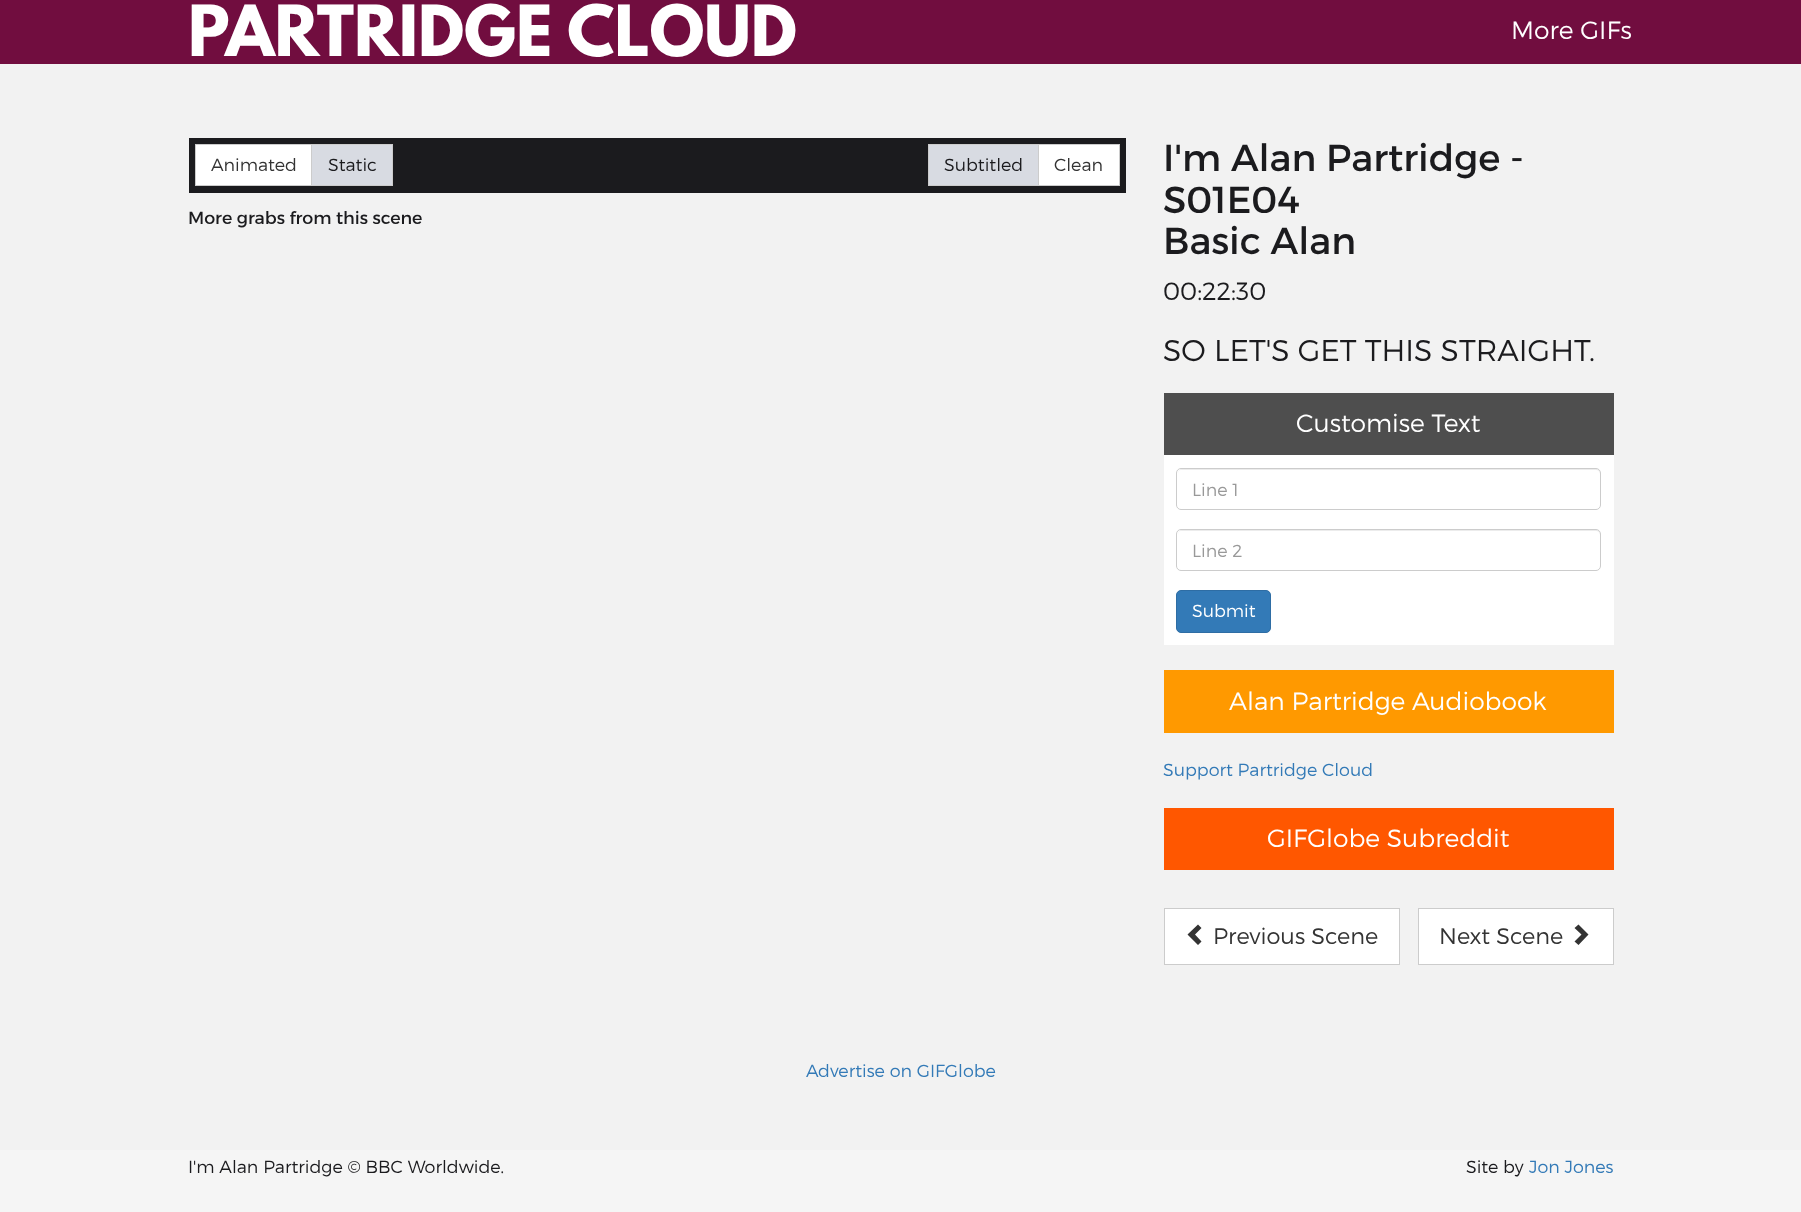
<svg xmlns="http://www.w3.org/2000/svg" width="1801" height="1212">
<rect width="100%" height="100%" fill="#f2f2f2"/>
<rect width="1801" height="64" fill="#710d3f"/>
<text x="188" y="56" style="font-family:League Spartan;font-size:62.5px;font-weight:bold;fill:#fff">PARTRIDGE CLOUD</text>
<text x="1511" y="39" style="font-family:Montserrat;font-size:25px;font-weight:300;fill:#fff">More GIFs</text>
<rect x="189" y="138" width="937" height="55" fill="#1b1b1e"/>
<rect x="196" y="145" width="115" height="40" fill="#fff"/>
<rect x="195.5" y="144.5" width="117" height="41" fill="none" stroke="#ccc"/>
<text x="211" y="171" style="font-family:Montserrat;font-size:17.5px;font-weight:300;fill:#333">Animated</text>
<rect x="311.5" y="144.5" width="81" height="41" fill="#d8dbe2" stroke="#ccc"/>
<text x="328" y="171" style="font-family:Montserrat;font-size:17.5px;font-weight:300;fill:#1b1b1e">Static</text>
<rect x="1038.5" y="144.5" width="81" height="41" fill="#fff" stroke="#ccc"/>
<rect x="928.5" y="144.5" width="110" height="41" fill="#d8dbe2" stroke="#ccc"/>
<text x="944" y="171" style="font-family:Montserrat;font-size:17.5px;font-weight:300;fill:#1b1b1e">Subtitled</text>
<text x="1054" y="171" style="font-family:Montserrat;font-size:17.5px;font-weight:300;fill:#333">Clean</text>
<text x="188" y="224" style="font-family:Montserrat;font-size:17.5px;fill:#1b1b1e">More grabs from this scene</text>
<text x="1163" y="171" style="font-family:Montserrat;font-size:37.5px;fill:#1b1b1e">I'm Alan Partridge -</text>
<text x="1163" y="213" style="font-family:Montserrat;font-size:37.5px;fill:#1b1b1e">S01E04</text>
<text x="1163" y="254" style="font-family:Montserrat;font-size:37.5px;fill:#1b1b1e">Basic Alan</text>
<text x="1163" y="300" style="font-family:Montserrat;font-size:25px;font-weight:300;fill:#1b1b1e">00:22:30</text>
<text x="1163" y="361" style="font-family:Montserrat;font-size:30px;font-weight:300;fill:#1b1b1e">SO LET'S GET THIS STRAIGHT.</text>
<rect x="1164" y="393" width="450" height="62" fill="#4e4e4e"/>
<text x="1296" y="432" style="font-family:Montserrat;font-size:25px;font-weight:300;fill:#fff">Customise Text</text>
<rect x="1164" y="455" width="450" height="190" fill="#fff"/>
<path d="M1181 470h415c2 0 4 2 4 4v-1c0-2-2-4-4-4h-414c-2 0-4 2-4 4v1c0-2 1-4 3-4z" fill="#ececec"/>
<rect x="1176.5" y="468.5" width="424" height="41" rx="4.5" fill="none" stroke="#ccc"/>
<text x="1192" y="496" style="font-family:Montserrat;font-size:17.5px;font-weight:300;fill:#999">Line 1</text>
<path d="M1181 531h415c2 0 4 2 4 4v-1c0-2-2-4-4-4h-414c-2 0-4 2-4 4v1c0-2 1-4 3-4z" fill="#ececec"/>
<rect x="1176.5" y="529.5" width="424" height="41" rx="4.5" fill="none" stroke="#ccc"/>
<text x="1192" y="557" style="font-family:Montserrat;font-size:17.5px;font-weight:300;fill:#999">Line 2</text>
<rect x="1176.5" y="590.5" width="94" height="42" rx="4.5" fill="#337ab7" stroke="#2e6da4"/>
<text x="1192" y="617" style="font-family:Montserrat;font-size:17.5px;font-weight:300;fill:#fff">Submit</text>
<rect x="1164" y="670" width="450" height="63" fill="#f90"/>
<text x="1229" y="710" style="font-family:Montserrat;font-size:25px;font-weight:300;fill:#fff">Alan Partridge Audiobook</text>
<text x="1163" y="776" style="font-family:Montserrat;font-size:17.5px;font-weight:300;fill:#337ab7">Support Partridge Cloud</text>
<rect x="1164" y="808" width="450" height="62" fill="#ff5700"/>
<text x="1267" y="847" style="font-family:Montserrat;font-size:25px;font-weight:300;fill:#fff">GIFGlobe Subreddit</text>
<rect x="1164.5" y="908.5" width="235" height="56" fill="#fff" stroke="#ccc"/>
<path d="M1201.5 928l-6.5 6.5l6.5 7l-3.5 3.5l-10.5-10.5l10.5-10z" fill="#333"/>
<text x="1213" y="944" style="font-family:Montserrat;font-size:22.5px;font-weight:300;fill:#333">Previous Scene</text>
<rect x="1418.5" y="908.5" width="195" height="56" fill="#fff" stroke="#ccc"/>
<text x="1439" y="944" style="font-family:Montserrat;font-size:22.5px;font-weight:300;fill:#333">Next Scene</text>
<path d="M1588.5 934.5l-10 10.5l-4-3.5l7-7l-7-6.5l4-3.5z" fill="#333"/>
<text x="806" y="1077" style="font-family:Montserrat;font-size:17.5px;font-weight:300;fill:#337ab7">Advertise on GIFGlobe</text>
<rect y="1150" width="1801" height="62" fill="#f5f5f5"/>
<text x="188" y="1173" style="font-family:Montserrat;font-size:17.5px;font-weight:300;fill:#1b1b1e">I'm Alan Partridge © BBC Worldwide.</text>
<text x="1466" y="1173" style="font-family:Montserrat;font-size:17.5px;font-weight:300;fill:#1b1b1e">Site by</text>
<text x="1529" y="1173" style="font-family:Montserrat;font-size:17.5px;font-weight:300;fill:#337ab7">Jon Jones</text>
</svg>
